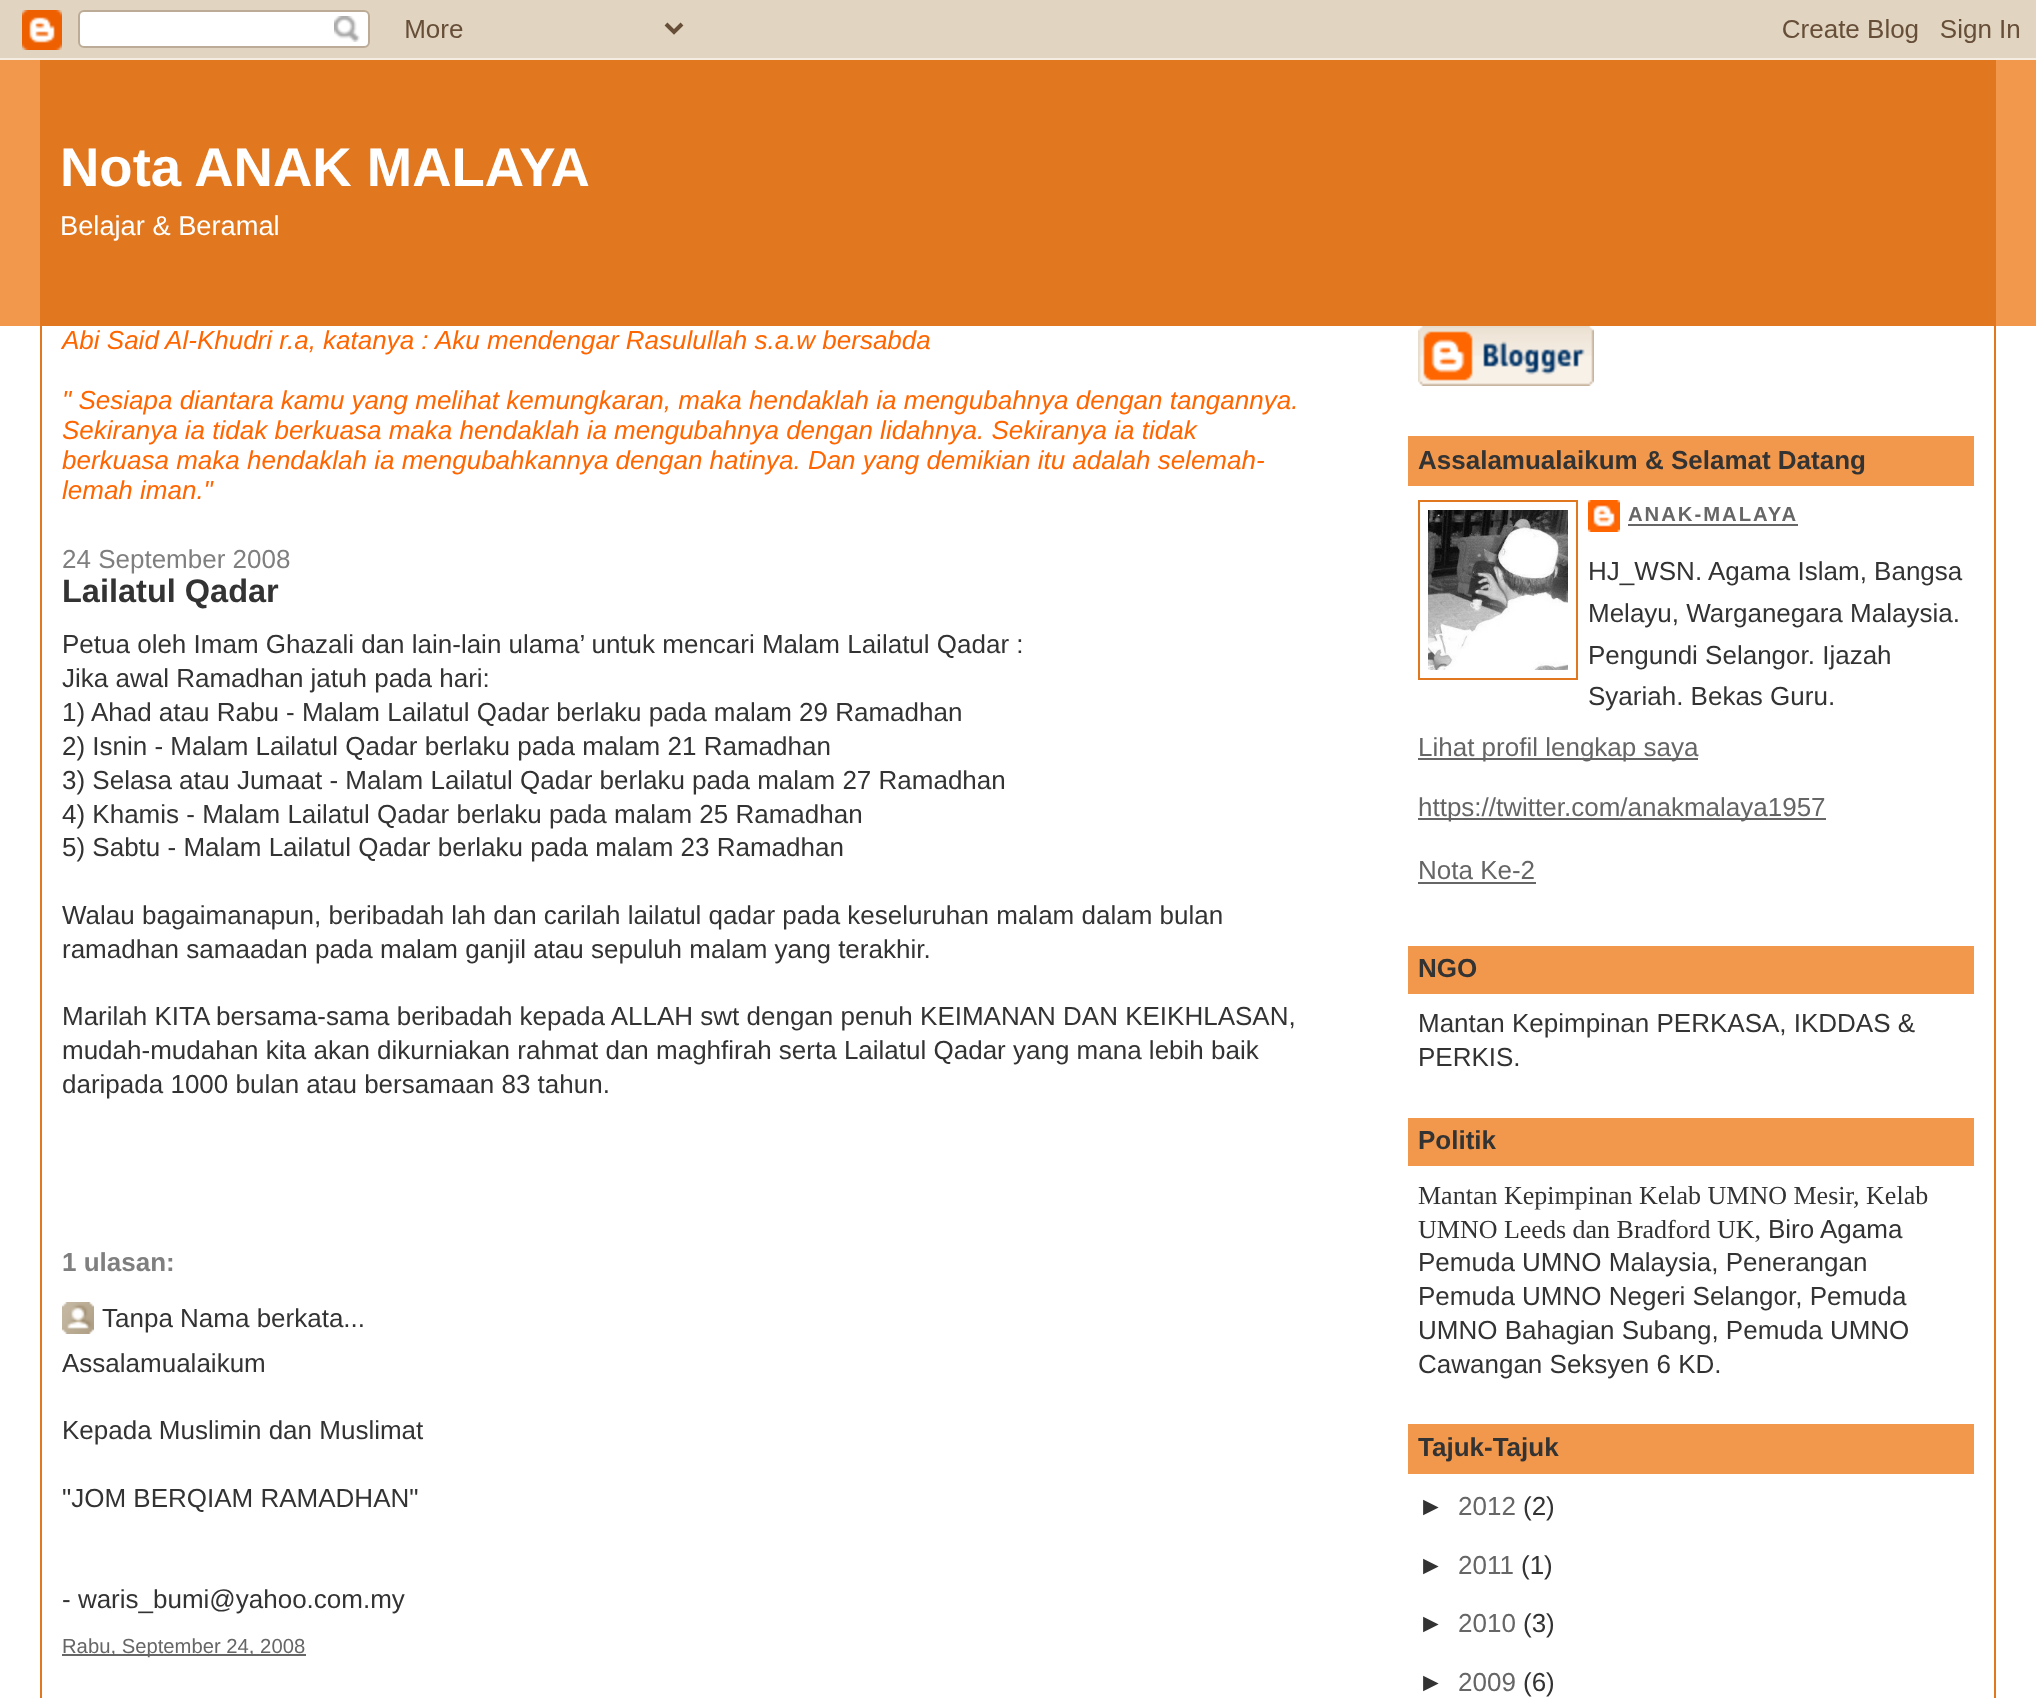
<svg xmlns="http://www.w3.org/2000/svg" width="2036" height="1698">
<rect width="100%" height="100%" fill="#fff"/>
<image x="0" y="0" width="2036" height="60" href="media/1.png"/>
<rect y="60" width="2036" height="266" fill="#f2984c"/>
<rect x="40" y="60" width="1956" height="266" fill="#e1771e"/>
<text x="60" y="186" style="font-family:Liberation Sans;font-size:54.5px;font-weight:bold;fill:#fff">Nota ANAK MALAYA</text>
<text x="60" y="235" style="font-family:Liberation Sans;font-size:27.25px;fill:#fff">Belajar &amp; Beramal</text>
<rect x="1994" y="326" width="2" height="1372" fill="#e1771e"/>
<rect x="40" y="326" width="2" height="1372" fill="#e1771e"/>
<text x="62" y="349" style="font-family:Liberation Sans;font-size:26px;font-style:italic;fill:#f60">Abi Said Al-Khudri r.a, katanya :</text>
<text x="435" y="349" style="font-family:Liberation Sans;font-size:26px;font-style:italic;fill:#f60">Aku mendengar Rasulullah s.a.w bersabda</text>
<text x="62" y="409" style="font-family:Liberation Sans;font-size:26px;font-style:italic;fill:#f60">" Sesiapa diantara kamu yang melihat kemungkaran, maka hendaklah ia mengubahnya dengan tangannya.</text>
<text x="62" y="439" style="font-family:Liberation Sans;font-size:26px;font-style:italic;fill:#f60">Sekiranya ia tidak berkuasa maka hendaklah ia mengubahnya dengan lidahnya. Sekiranya ia tidak</text>
<text x="62" y="469" style="font-family:Liberation Sans;font-size:26px;font-style:italic;fill:#f60">berkuasa maka hendaklah ia mengubahkannya dengan hatinya. Dan yang demikian itu adalah selemah-</text>
<text x="62" y="499" style="font-family:Liberation Sans;font-size:26px;font-style:italic;fill:#f60">lemah iman."</text>
<text x="62" y="568" style="font-family:Liberation Sans;font-size:26px;fill:#7f7f7f">24 September 2008</text>
<text x="62" y="602" style="font-family:Liberation Sans;font-size:32.5px;font-weight:bold;fill:#333">Lailatul Qadar</text>
<text x="62" y="653" style="font-family:Liberation Sans;font-size:26px;fill:#333">Petua oleh Imam Ghazali dan lain-lain ulama’ untuk mencari Malam Lailatul Qadar :</text>
<text x="62" y="687" style="font-family:Liberation Sans;font-size:26px;fill:#333">Jika awal Ramadhan jatuh pada hari:</text>
<text x="62" y="721" style="font-family:Liberation Sans;font-size:26px;fill:#333">1) Ahad atau Rabu - Malam Lailatul Qadar berlaku pada malam 29 Ramadhan</text>
<text x="62" y="755" style="font-family:Liberation Sans;font-size:26px;fill:#333">2) Isnin - Malam Lailatul Qadar berlaku pada malam 21 Ramadhan</text>
<text x="62" y="789" style="font-family:Liberation Sans;font-size:26px;fill:#333">3) Selasa atau Jumaat - Malam Lailatul Qadar berlaku pada malam 27 Ramadhan</text>
<text x="62" y="823" style="font-family:Liberation Sans;font-size:26px;fill:#333">4) Khamis - Malam Lailatul Qadar berlaku pada malam 25 Ramadhan</text>
<text x="62" y="856" style="font-family:Liberation Sans;font-size:26px;fill:#333">5) Sabtu - Malam Lailatul Qadar berlaku pada malam 23 Ramadhan</text>
<text x="62" y="924" style="font-family:Liberation Sans;font-size:26px;fill:#333">Walau bagaimanapun, beribadah lah dan carilah lailatul qadar pada keseluruhan malam dalam bulan</text>
<text x="62" y="958" style="font-family:Liberation Sans;font-size:26px;fill:#333">ramadhan samaadan pada malam ganjil atau sepuluh malam yang terakhir.</text>
<text x="62" y="1025" style="font-family:Liberation Sans;font-size:26px;fill:#333">Marilah KITA bersama-sama beribadah kepada ALLAH swt dengan penuh KEIMANAN DAN KEIKHLASAN,</text>
<text x="62" y="1059" style="font-family:Liberation Sans;font-size:26px;fill:#333">mudah-mudahan kita akan dikurniakan rahmat dan maghfirah serta Lailatul Qadar yang mana lebih baik</text>
<text x="62" y="1093" style="font-family:Liberation Sans;font-size:26px;fill:#333">daripada 1000 bulan atau bersamaan 83 tahun.</text>
<text x="62" y="1271" style="font-family:Liberation Sans;font-size:26px;font-weight:bold;fill:#7f7f7f">1 ulasan:</text>
<image x="62" y="1302" width="32" height="32" href="media/2.png"/>
<text x="102" y="1327" style="font-family:Liberation Sans;font-size:26px;fill:#333">Tanpa Nama berkata...</text>
<text x="62" y="1372" style="font-family:Liberation Sans;font-size:26px;fill:#333">Assalamualaikum</text>
<text x="62" y="1439" style="font-family:Liberation Sans;font-size:26px;fill:#333">Kepada Muslimin dan Muslimat</text>
<text x="62" y="1507" style="font-family:Liberation Sans;font-size:26px;fill:#333">"JOM BERQIAM RAMADHAN"</text>
<text x="62" y="1608" style="font-family:Liberation Sans;font-size:26px;fill:#333">- waris_bumi@yahoo.com.my</text>
<rect x="62" y="1654" width="244" height="2" fill="#666"/>
<text x="62" y="1653" style="font-family:Liberation Sans;font-size:20.25px;fill:#666">Rabu, September 24, 2008</text>
<image x="1418" y="326" width="176" height="60" href="media/3.png"/>
<rect x="1408" y="436" width="566" height="50" fill="#f2984c"/>
<text x="1418" y="469" style="font-family:Liberation Sans;font-size:26px;font-weight:bold;fill:#333">Assalamualaikum &amp; Selamat Datang</text>
<rect x="1419" y="501" width="158" height="178" fill="none" stroke="#e1771e" stroke-width="2"/>
<image x="1428" y="510" width="140" height="160" href="media/4.png"/>
<image x="1588" y="500" width="32" height="32" href="media/5.png"/>
<text x="1628" y="521" style="font-family:Liberation Sans;font-size:20.25px;font-weight:bold;letter-spacing:2px;fill:#666">ANAK-MALAYA</text>
<rect x="1628" y="524" width="170" height="2" fill="#666"/>
<text x="1588" y="580" style="font-family:Liberation Sans;font-size:26px;fill:#333">HJ_WSN. Agama Islam, Bangsa</text>
<text x="1588" y="622" style="font-family:Liberation Sans;font-size:26px;fill:#333">Melayu, Warganegara Malaysia.</text>
<text x="1588" y="664" style="font-family:Liberation Sans;font-size:26px;fill:#333">Pengundi Selangor. Ijazah</text>
<text x="1588" y="705" style="font-family:Liberation Sans;font-size:26px;fill:#333">Syariah. Bekas Guru.</text>
<rect x="1418" y="758" width="280" height="2" fill="#666"/>
<text x="1418" y="756" style="font-family:Liberation Sans;font-size:26px;fill:#666">Lihat profil lengkap saya</text>
<rect x="1418" y="818" width="408" height="2" fill="#666"/>
<text x="1418" y="816" style="font-family:Liberation Sans;font-size:26px;fill:#666">https://twitter.com/anakmalaya1957</text>
<text x="1418" y="879" style="font-family:Liberation Sans;font-size:26px;fill:#666">Nota Ke-2</text>
<rect x="1418" y="882" width="118" height="2" fill="#666"/>
<rect x="1408" y="946" width="566" height="48" fill="#f2984c"/>
<text x="1418" y="977" style="font-family:Liberation Sans;font-size:26px;font-weight:bold;fill:#333">NGO</text>
<text x="1418" y="1032" style="font-family:Liberation Sans;font-size:26px;fill:#333">Mantan Kepimpinan PERKASA, IKDDAS &amp;</text>
<text x="1418" y="1066" style="font-family:Liberation Sans;font-size:26px;fill:#333">PERKIS.</text>
<rect x="1408" y="1118" width="566" height="48" fill="#f2984c"/>
<text x="1418" y="1149" style="font-family:Liberation Sans;font-size:26px;font-weight:bold;fill:#333">Politik</text>
<text x="1418" y="1204" style="font-family:Liberation Serif;font-size:26px;fill:#333">Mantan Kepimpinan Kelab UMNO Mesir, Kelab</text>
<text x="1418" y="1238" style="font-family:Liberation Serif;font-size:26px;fill:#333">UMNO Leeds dan Bradford UK,</text>
<text x="1768" y="1238" style="font-family:Liberation Sans;font-size:26px;fill:#333">Biro Agama</text>
<text x="1418" y="1271" style="font-family:Liberation Sans;font-size:26px;fill:#333">Pemuda UMNO Malaysia, Penerangan</text>
<text x="1418" y="1305" style="font-family:Liberation Sans;font-size:26px;fill:#333">Pemuda UMNO Negeri Selangor, Pemuda</text>
<text x="1418" y="1339" style="font-family:Liberation Sans;font-size:26px;fill:#333">UMNO Bahagian Subang, Pemuda UMNO</text>
<text x="1418" y="1373" style="font-family:Liberation Sans;font-size:26px;fill:#333">Cawangan Seksyen 6 KD.</text>
<rect x="1408" y="1424" width="566" height="50" fill="#f2984c"/>
<text x="1418" y="1456" style="font-family:Liberation Sans;font-size:26px;font-weight:bold;fill:#333">Tajuk-Tajuk</text>
<text x="1418" y="1515" style="font-family:Liberation Sans;font-size:26px;fill:#333">►</text>
<text x="1458" y="1515" style="font-family:Liberation Sans;font-size:26px;fill:#666">2012</text>
<text x="1523" y="1515" style="font-family:Liberation Sans;font-size:26px;fill:#333">(2)</text>
<text x="1418" y="1574" style="font-family:Liberation Sans;font-size:26px;fill:#333">►</text>
<text x="1458" y="1574" style="font-family:Liberation Sans;font-size:26px;fill:#666">2011</text>
<text x="1521" y="1574" style="font-family:Liberation Sans;font-size:26px;fill:#333">(1)</text>
<text x="1418" y="1632" style="font-family:Liberation Sans;font-size:26px;fill:#333">►</text>
<text x="1458" y="1632" style="font-family:Liberation Sans;font-size:26px;fill:#666">2010</text>
<text x="1523" y="1632" style="font-family:Liberation Sans;font-size:26px;fill:#333">(3)</text>
<text x="1418" y="1691" style="font-family:Liberation Sans;font-size:26px;fill:#333">►</text>
<text x="1458" y="1691" style="font-family:Liberation Sans;font-size:26px;fill:#666">2009</text>
<text x="1523" y="1691" style="font-family:Liberation Sans;font-size:26px;fill:#333">(6)</text>
</svg>
